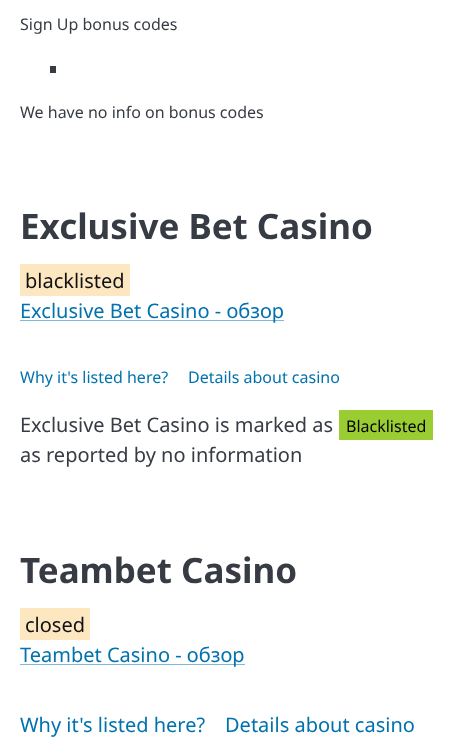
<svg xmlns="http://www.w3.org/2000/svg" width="463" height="751">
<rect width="100%" height="100%" fill="#fff"/>
<text x="20" y="30" style="font-family:Noto Sans;font-size:16px;fill:#373c44">Sign Up bonus codes</text>
<rect x="50" y="66" width="6" height="7" fill="#373c44"/>
<text x="20" y="118" style="font-family:Noto Sans;font-size:16px;fill:#373c44">We have no info on bonus codes</text>
<text x="20" y="239" style="font-family:Noto Sans;font-size:35px;font-weight:bold;fill:#373c44">Exclusive Bet Casino</text>
<rect x="20" y="264" width="110" height="32" fill="#fde7c0"/>
<text x="25" y="288" style="font-family:Noto Sans;font-size:20px;fill:#0f1114">blacklisted</text>
<rect x="20" y="320" width="264" height="1" fill="#80b9d6"/>
<text x="20" y="318" style="font-family:Noto Sans;font-size:20px;fill:#0172ad">Exclusive Bet Casino - обзор</text>
<text x="20" y="383" style="font-family:Noto Sans;font-size:16px;fill:#0172ad">Why it's listed here?</text>
<text x="188" y="383" style="font-family:Noto Sans;font-size:16px;fill:#0172ad">Details about casino</text>
<text x="20" y="432" style="font-family:Noto Sans;font-size:20px;fill:#373c44">Exclusive Bet Casino is marked as</text>
<rect x="339" y="410" width="94" height="30" fill="#9acd32"/>
<text x="346" y="432" style="font-family:Noto Sans;font-size:16px;fill:#000">Blacklisted</text>
<text x="20" y="462" style="font-family:Noto Sans;font-size:20px;fill:#373c44">as reported by no information</text>
<text x="20" y="583" style="font-family:Noto Sans;font-size:35px;font-weight:bold;fill:#373c44">Teambet Casino</text>
<rect x="20" y="608" width="70" height="32" fill="#fde7c0"/>
<text x="25" y="632" style="font-family:Noto Sans;font-size:20px;fill:#0f1114">closed</text>
<rect x="20" y="664" width="225" height="1" fill="#80b9d6"/>
<text x="20" y="662" style="font-family:Noto Sans;font-size:20px;fill:#0172ad">Teambet Casino - обзор</text>
<text x="20" y="732" style="font-family:Noto Sans;font-size:20px;fill:#0172ad">Why it's listed here?</text>
<text x="225" y="732" style="font-family:Noto Sans;font-size:20px;fill:#0172ad">Details about casino</text>
</svg>
